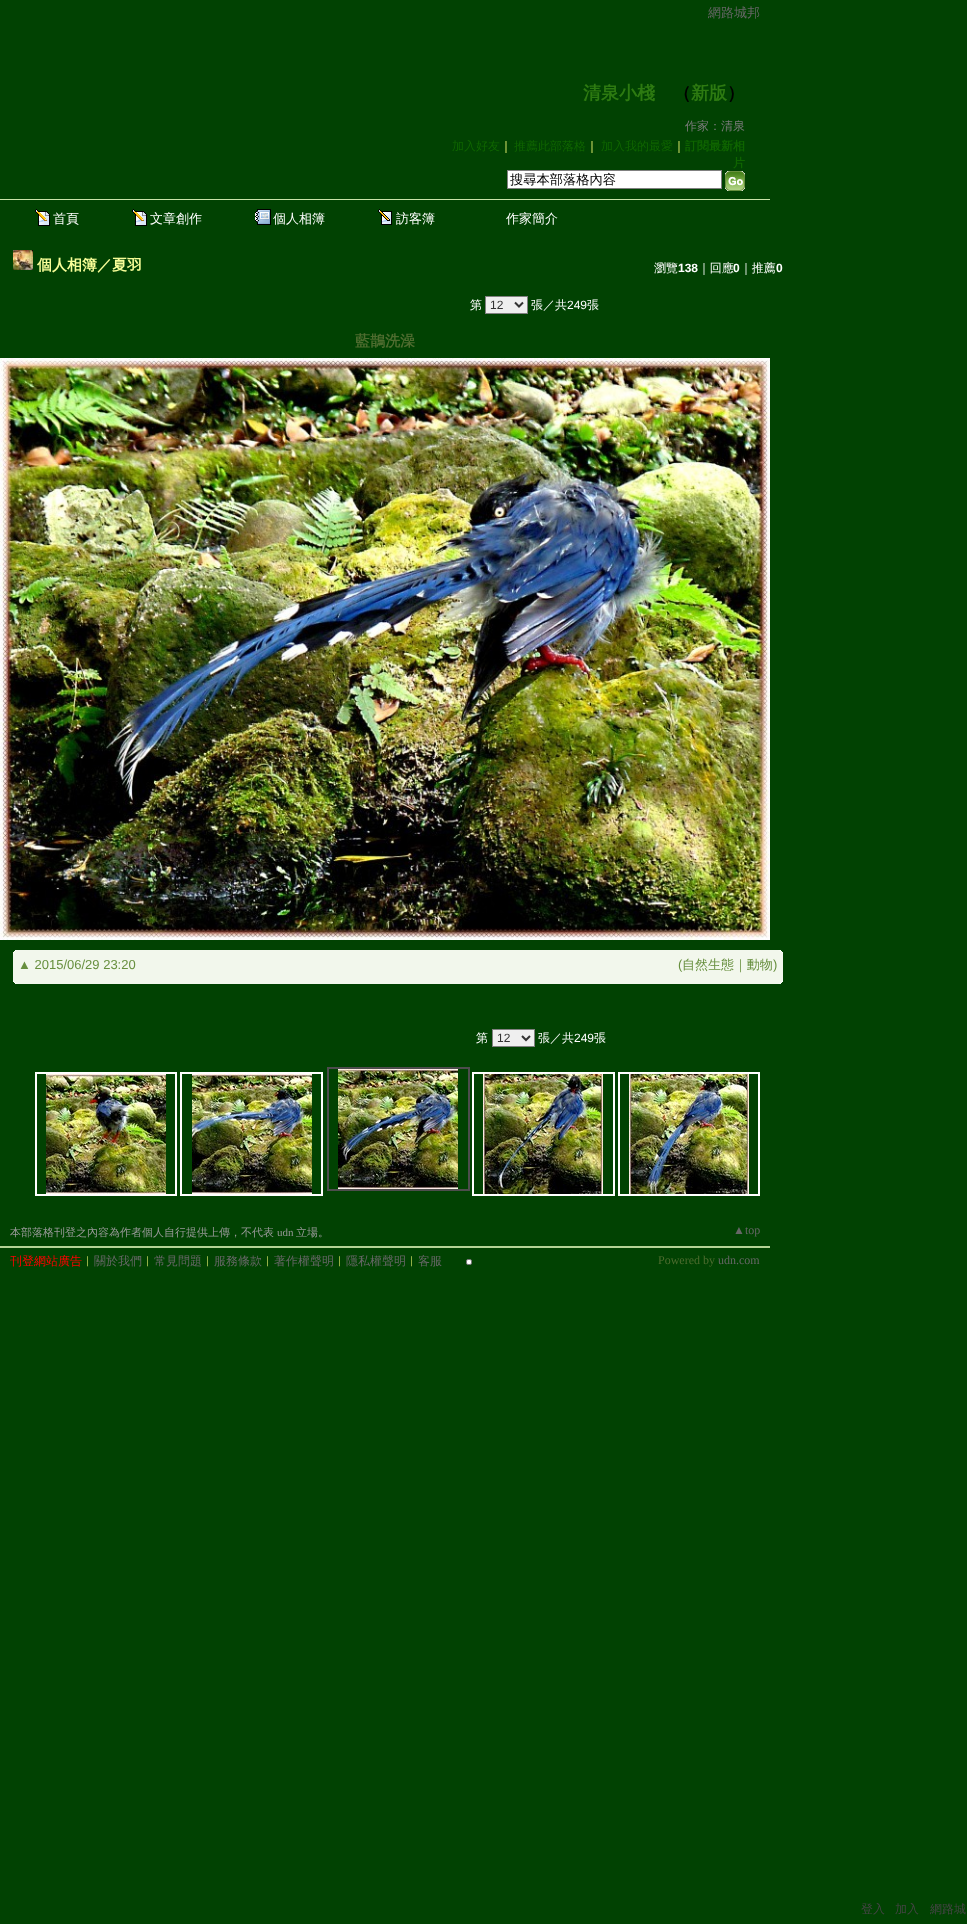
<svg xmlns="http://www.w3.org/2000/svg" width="967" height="1924">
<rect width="100%" height="100%" fill="#014202"/>
<text x="708" y="17" style="font-family:WenQuanYi Zen Hei;font-size:13px;font-weight:500;fill:#666">網路城邦</text>
<text x="583" y="99" style="font-family:WenQuanYi Zen Hei;font-size:18px;font-weight:bold;fill:#2d7a11">清泉小棧</text>
<text x="673" y="99" style="font-family:WenQuanYi Zen Hei;font-size:18px;font-weight:bold;fill:#000">（</text>
<text x="691" y="99" style="font-family:WenQuanYi Zen Hei;font-size:18px;font-weight:bold;fill:#2d7a11">新版</text>
<text x="727" y="99" style="font-family:WenQuanYi Zen Hei;font-size:18px;font-weight:bold;fill:#000">）</text>
<text x="685" y="130" style="font-family:WenQuanYi Zen Hei;font-size:12px;font-weight:500;fill:#7a7a7a">作家：清泉</text>
<text x="452" y="150" style="font-family:WenQuanYi Zen Hei;font-size:12px;font-weight:500;fill:#0f6500">加入好友</text>
<text x="500" y="150" style="font-family:WenQuanYi Zen Hei;font-size:12px;font-weight:500;fill:#fdff78">｜</text>
<text x="514" y="150" style="font-family:WenQuanYi Zen Hei;font-size:12px;font-weight:500;fill:#0f6500">推薦此部落格</text>
<text x="586" y="150" style="font-family:WenQuanYi Zen Hei;font-size:12px;font-weight:500;fill:#fdff78">｜</text>
<text x="601" y="150" style="font-family:WenQuanYi Zen Hei;font-size:12px;font-weight:500;fill:#0f6500">加入我的最愛</text>
<text x="673" y="150" style="font-family:WenQuanYi Zen Hei;font-size:12px;font-weight:500;fill:#fdff78">｜</text>
<text x="685" y="150" style="font-family:WenQuanYi Zen Hei;font-size:12px;font-weight:bold;fill:#0f6500">訂閱最新相</text>
<text x="733" y="167" style="font-family:WenQuanYi Zen Hei;font-size:12px;font-weight:bold;fill:#0f6500">片</text>
<rect x="507.5" y="170.5" width="214" height="18" fill="#fff" stroke="#808080"/>
<text x="510" y="184" style="font-family:WenQuanYi Zen Hei;font-size:13.25px;font-weight:500;fill:#000">搜尋本部落格內容</text>
<image x="725" y="171" width="20" height="20" href="media/1.png"/>
<rect y="199" width="770" height="1" fill="#c9e3a9"/>
<image x="35" y="209" width="15" height="17" href="media/2.png"/>
<text x="53" y="223" style="font-family:WenQuanYi Zen Hei;font-size:13px;font-weight:500;fill:#fff">首頁</text>
<image x="132" y="209" width="15" height="17" href="media/2.png"/>
<text x="150" y="223" style="font-family:WenQuanYi Zen Hei;font-size:13px;font-weight:500;fill:#fff">文章創作</text>
<image x="255" y="209" width="16" height="16" href="media/3.png"/>
<text x="273" y="223" style="font-family:WenQuanYi Zen Hei;font-size:13px;font-weight:500;fill:#fff">個人相簿</text>
<image x="378" y="209" width="14" height="16" href="media/4.png"/>
<text x="396" y="223" style="font-family:WenQuanYi Zen Hei;font-size:13px;font-weight:500;fill:#fff">訪客簿</text>
<text x="506" y="223" style="font-family:WenQuanYi Zen Hei;font-size:13px;font-weight:500;fill:#fff">作家簡介</text>
<image x="13" y="250" width="20" height="20" href="media/5.png"/>
<text x="37" y="270" style="font-family:WenQuanYi Zen Hei;font-size:15px;font-weight:bold;fill:#f8fe98">個人相簿／夏羽</text>
<text x="654" y="272" style="font-family:WenQuanYi Zen Hei;font-size:12px;font-weight:500;fill:#fff">瀏覽</text>
<text x="678" y="272" style="font-family:Liberation Sans;font-size:12px;font-weight:bold;fill:#fff">138</text>
<text x="698" y="272" style="font-family:WenQuanYi Zen Hei;font-size:12px;font-weight:500;fill:#fff">｜回應</text>
<text x="733" y="272" style="font-family:Liberation Sans;font-size:12px;font-weight:bold;fill:#fff">0</text>
<text x="740" y="272" style="font-family:WenQuanYi Zen Hei;font-size:12px;font-weight:500;fill:#fff">｜推薦</text>
<text x="776" y="272" style="font-family:Liberation Sans;font-size:12px;font-weight:bold;fill:#fff">0</text>
<text x="470" y="309" style="font-family:WenQuanYi Zen Hei;font-size:12px;font-weight:500;fill:#fff">第</text>
<rect x="485.5" y="296.5" width="42" height="17" fill="#efefef" stroke="#808080"/>
<path d="M515 302.5l4 4l4-4" fill="none" stroke="#333" stroke-width="2"/>
<text x="490" y="309" style="font-family:Liberation Sans;font-size:12px;fill:#333">12</text>
<text x="531" y="309" style="font-family:WenQuanYi Zen Hei;font-size:12px;font-weight:500;fill:#fff">張／共</text>
<text x="567" y="309" style="font-family:Liberation Sans;font-size:12px;fill:#fff">249</text>
<text x="587" y="309" style="font-family:WenQuanYi Zen Hei;font-size:12px;font-weight:500;fill:#fff">張</text>
<text x="355" y="346" style="font-family:WenQuanYi Zen Hei;font-size:15px;font-weight:bold;fill:#4e6c2f">藍鵲洗澡</text>
<image x="0" y="358" width="770" height="582" href="media/6.png"/>
<image x="13" y="950" width="5" height="5" href="media/7.png"/>
<rect x="18" y="950" width="760" height="5" fill="#f2f7ec"/>
<image x="778" y="950" width="5" height="5" href="media/8.png"/>
<rect x="13" y="955" width="770" height="24" fill="#f2f7ec"/>
<text x="18" y="969" style="font-family:Liberation Sans;font-size:13px;fill:#678f3e">▲ 2015/06/29 23:20</text>
<text x="678" y="969" style="font-family:Liberation Sans;font-size:13px;fill:#678f3e">(</text>
<text x="682" y="969" style="font-family:WenQuanYi Zen Hei;font-size:13px;font-weight:500;fill:#678f3e">自然生態｜動物</text>
<text x="773" y="969" style="font-family:Liberation Sans;font-size:13px;fill:#678f3e">)</text>
<image x="13" y="979" width="5" height="5" href="media/9.png"/>
<rect x="18" y="979" width="760" height="5" fill="#f2f7ec"/>
<image x="778" y="979" width="5" height="5" href="media/10.png"/>
<text x="476" y="1042" style="font-family:WenQuanYi Zen Hei;font-size:12px;font-weight:500;fill:#fff">第</text>
<rect x="492.5" y="1029.5" width="42" height="17" fill="#efefef" stroke="#808080"/>
<path d="M522 1036l4 4l4-4" fill="none" stroke="#333" stroke-width="2"/>
<text x="497" y="1042" style="font-family:Liberation Sans;font-size:12px;fill:#333">12</text>
<text x="538" y="1042" style="font-family:WenQuanYi Zen Hei;font-size:12px;font-weight:500;fill:#fff">張／共</text>
<text x="574" y="1042" style="font-family:Liberation Sans;font-size:12px;fill:#fff">249</text>
<text x="594" y="1042" style="font-family:WenQuanYi Zen Hei;font-size:12px;font-weight:500;fill:#fff">張</text>
<rect x="36" y="1073" width="140" height="122" fill="none" stroke="#fff" stroke-width="2"/>
<image x="46" y="1074" width="120" height="120" href="media/11.png"/>
<rect x="181" y="1073" width="141" height="122" fill="none" stroke="#fff" stroke-width="2"/>
<image x="192" y="1074" width="120" height="120" href="media/12.png"/>
<rect x="328" y="1068" width="141" height="122" fill="none" stroke="#4d4d4d" stroke-width="2"/>
<image x="338" y="1069" width="120" height="120" href="media/13.png"/>
<rect x="473" y="1073" width="141" height="122" fill="none" stroke="#fff" stroke-width="2"/>
<image x="483" y="1074" width="120" height="120" href="media/14.png"/>
<rect x="619" y="1073" width="140" height="122" fill="none" stroke="#fff" stroke-width="2"/>
<image x="629" y="1074" width="120" height="120" href="media/15.png"/>
<rect y="1246" width="770" height="2" fill="#b4d295"/>
<text x="10" y="1236" style="font-family:WenQuanYi Zen Hei;font-size:11px;font-weight:500;fill:#999">本部落格刊登之內容為作者個人自行提供上傳，不代表</text>
<text x="277" y="1236" style="font-family:Liberation Serif;font-size:11px;fill:#999">udn</text>
<text x="296" y="1236" style="font-family:WenQuanYi Zen Hei;font-size:11px;font-weight:500;fill:#999">立場。</text>
<text x="733" y="1234" style="font-family:Liberation Serif;font-size:12px;fill:#666">▲top</text>
<text x="10" y="1265" style="font-family:WenQuanYi Zen Hei;font-size:12px;font-weight:500;fill:#f00">刊登網站廣告</text>
<text x="82" y="1265" style="font-family:WenQuanYi Zen Hei;font-size:12px;font-weight:500;fill:#fdff78">︱</text>
<text x="94" y="1265" style="font-family:WenQuanYi Zen Hei;font-size:12px;font-weight:500;fill:#666">關於我們</text>
<text x="142" y="1265" style="font-family:WenQuanYi Zen Hei;font-size:12px;font-weight:500;fill:#fdff78">︱</text>
<text x="154" y="1265" style="font-family:WenQuanYi Zen Hei;font-size:12px;font-weight:500;fill:#666">常見問題</text>
<text x="202" y="1265" style="font-family:WenQuanYi Zen Hei;font-size:12px;font-weight:500;fill:#fdff78">︱</text>
<text x="214" y="1265" style="font-family:WenQuanYi Zen Hei;font-size:12px;font-weight:500;fill:#666">服務條款</text>
<text x="262" y="1265" style="font-family:WenQuanYi Zen Hei;font-size:12px;font-weight:500;fill:#fdff78">︱</text>
<text x="274" y="1265" style="font-family:WenQuanYi Zen Hei;font-size:12px;font-weight:500;fill:#666">著作權聲明</text>
<text x="334" y="1265" style="font-family:WenQuanYi Zen Hei;font-size:12px;font-weight:500;fill:#fdff78">︱</text>
<text x="346" y="1265" style="font-family:WenQuanYi Zen Hei;font-size:12px;font-weight:500;fill:#666">隱私權聲明</text>
<text x="406" y="1265" style="font-family:WenQuanYi Zen Hei;font-size:12px;font-weight:500;fill:#fdff78">︱</text>
<text x="418" y="1265" style="font-family:WenQuanYi Zen Hei;font-size:12px;font-weight:500;fill:#666">客服</text>
<rect x="466.5" y="1259.5" width="5" height="5" rx="1.5" fill="#fff" stroke="#767676"/>
<text x="658" y="1264" style="font-family:Liberation Serif;font-size:12px;fill:#4e6c2f">Powered by</text>
<text x="718" y="1264" style="font-family:Liberation Serif;font-size:12px;fill:#666">udn.com</text>
<text x="861" y="1913" style="font-family:WenQuanYi Zen Hei;font-size:12px;font-weight:500;fill:#444">登入</text>
<text x="895" y="1913" style="font-family:WenQuanYi Zen Hei;font-size:12px;font-weight:500;fill:#444">加入</text>
<text x="930" y="1913" style="font-family:WenQuanYi Zen Hei;font-size:12px;font-weight:500;fill:#444">網路城</text>
</svg>
